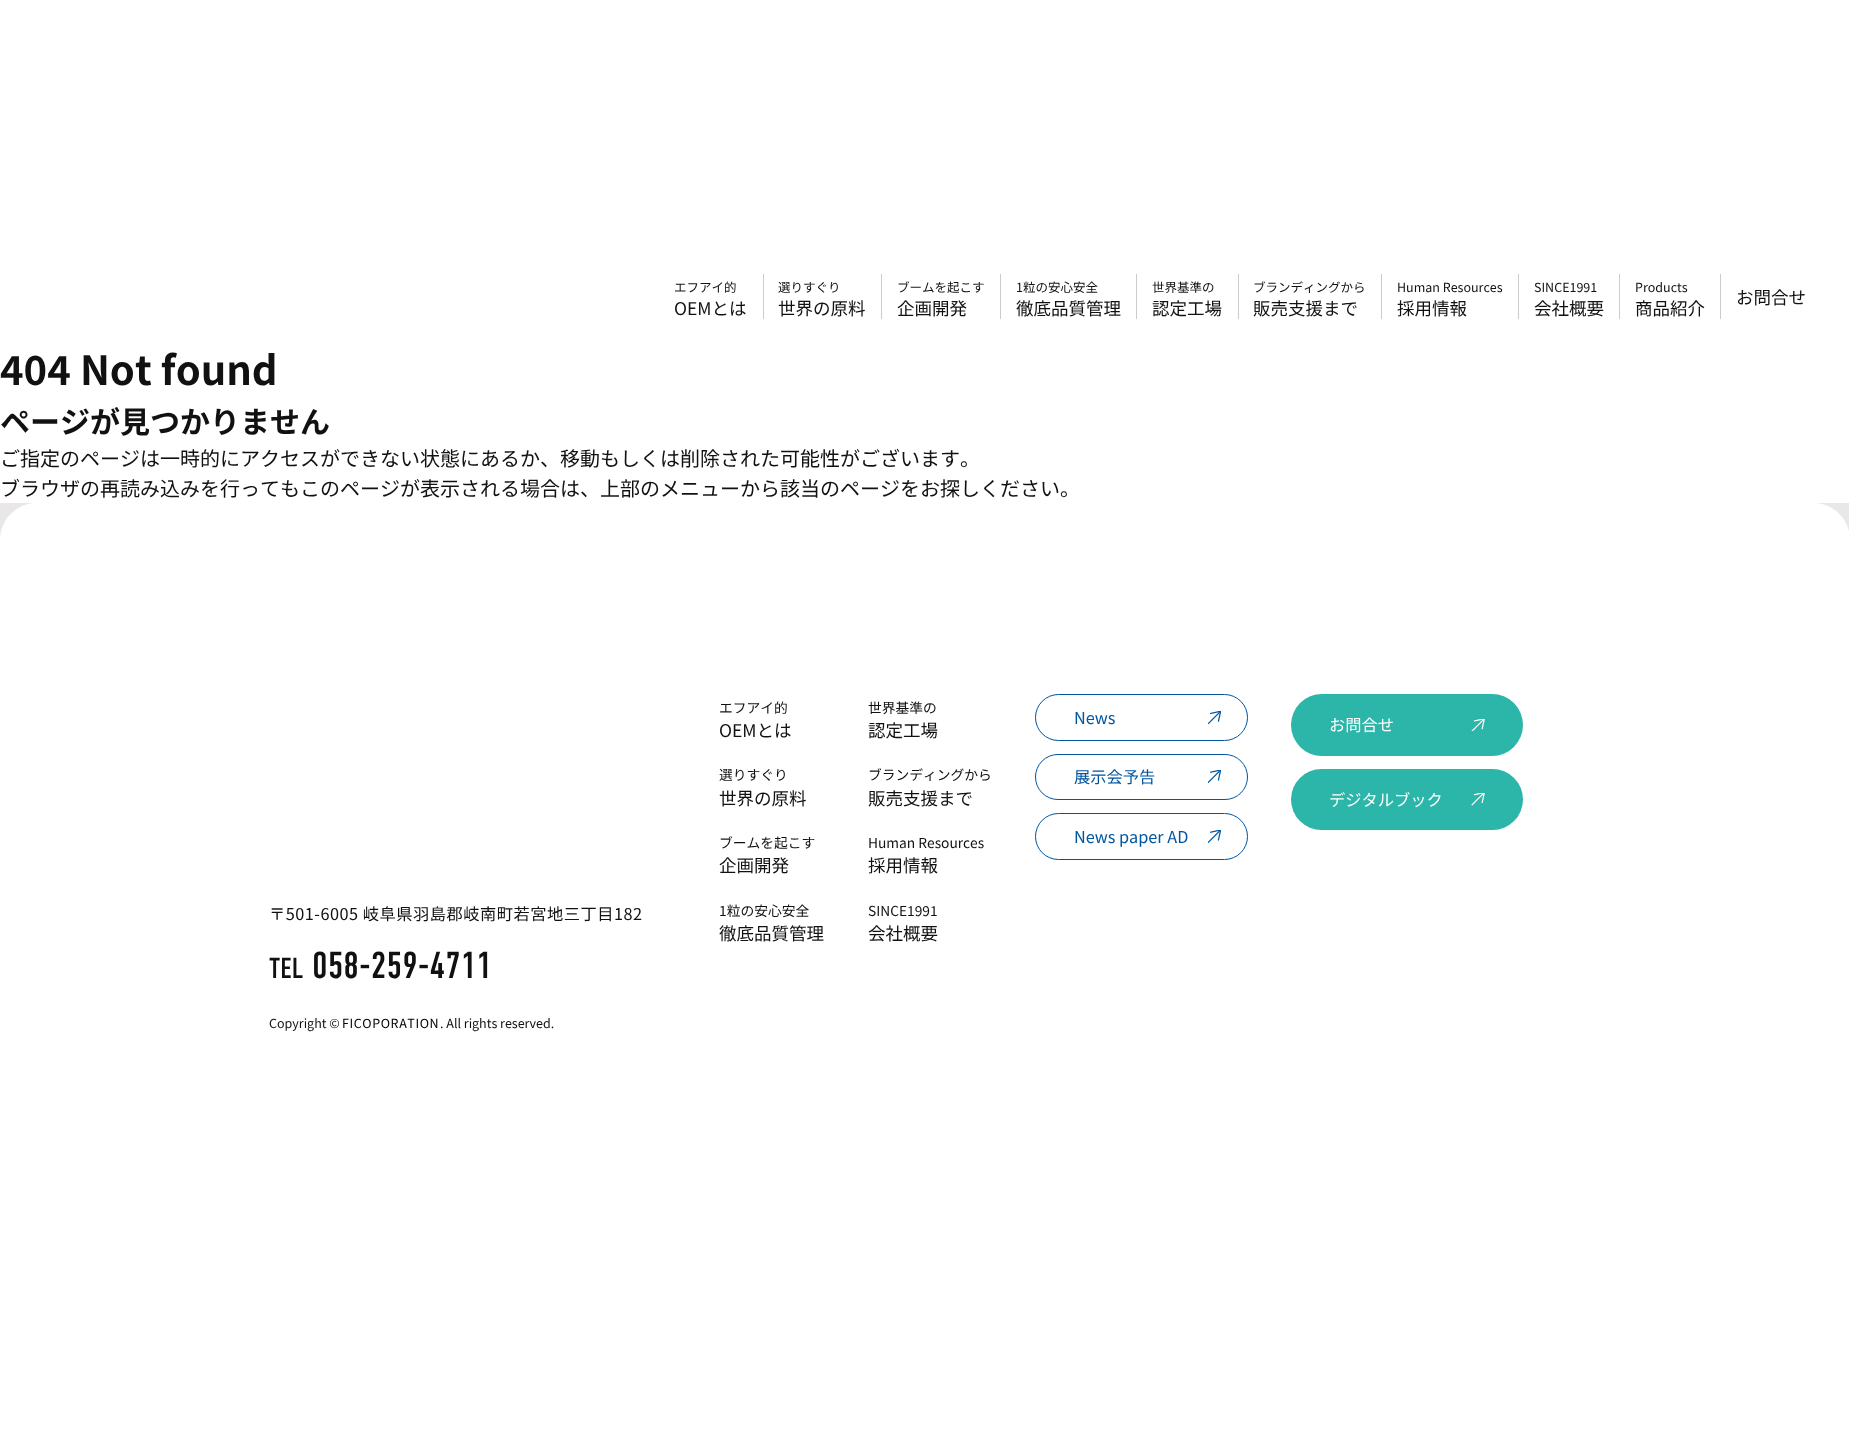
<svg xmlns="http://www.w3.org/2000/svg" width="1849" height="1449">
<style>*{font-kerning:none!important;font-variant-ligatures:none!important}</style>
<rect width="100%" height="100%" fill="#fff"/>
<rect x="763" y="274" width="1" height="45" fill="#ccc"/>
<text x="674" y="292" style="font-family:Noto Sans JP;font-size:12.5px;fill:#111">エフアイ的</text>
<text x="674" y="315" style="font-family:Noto Sans JP;font-size:17.5px;fill:#111">OEMとは</text>
<rect x="881" y="274" width="1" height="45" fill="#ccc"/>
<text x="778" y="292" style="font-family:Noto Sans JP;font-size:12.5px;fill:#111">選りすぐり</text>
<text x="778" y="315" style="font-family:Noto Sans JP;font-size:17.5px;fill:#111">世界の原料</text>
<rect x="1000" y="274" width="1" height="45" fill="#ccc"/>
<text x="897" y="292" style="font-family:Noto Sans JP;font-size:12.5px;fill:#111">ブームを起こす</text>
<text x="897" y="315" style="font-family:Noto Sans JP;font-size:17.5px;fill:#111">企画開発</text>
<rect x="1136" y="274" width="1" height="45" fill="#ccc"/>
<text x="1016" y="292" style="font-family:Noto Sans JP;font-size:12.5px;fill:#111">1粒の安心安全</text>
<text x="1016" y="315" style="font-family:Noto Sans JP;font-size:17.5px;fill:#111">徹底品質管理</text>
<rect x="1238" y="274" width="1" height="45" fill="#ccc"/>
<text x="1152" y="292" style="font-family:Noto Sans JP;font-size:12.5px;fill:#111">世界基準の</text>
<text x="1152" y="315" style="font-family:Noto Sans JP;font-size:17.5px;fill:#111">認定工場</text>
<rect x="1381" y="274" width="1" height="45" fill="#ccc"/>
<text x="1253" y="292" style="font-family:Noto Sans JP;font-size:12.5px;fill:#111">ブランディングから</text>
<text x="1253" y="315" style="font-family:Noto Sans JP;font-size:17.5px;fill:#111">販売支援まで</text>
<rect x="1518" y="274" width="1" height="45" fill="#ccc"/>
<text x="1397" y="292" style="font-family:Noto Sans JP;font-size:12.5px;fill:#111">Human Resources</text>
<text x="1397" y="315" style="font-family:Noto Sans JP;font-size:17.5px;fill:#111">採用情報</text>
<rect x="1619" y="274" width="1" height="45" fill="#ccc"/>
<text x="1534" y="292" style="font-family:Noto Sans JP;font-size:12.5px;fill:#111">SINCE1991</text>
<text x="1534" y="315" style="font-family:Noto Sans JP;font-size:17.5px;fill:#111">会社概要</text>
<rect x="1720" y="274" width="1" height="45" fill="#ccc"/>
<text x="1635" y="292" style="font-family:Noto Sans JP;font-size:12.5px;fill:#111">Products</text>
<text x="1635" y="315" style="font-family:Noto Sans JP;font-size:17.5px;fill:#111">商品紹介</text>
<text x="1736" y="304" style="font-family:Noto Sans JP;font-size:17.5px;fill:#111">お問合せ</text>
<text x="0" y="385" style="font-family:Noto Sans JP;font-size:40px;font-weight:bold;fill:#111">404 Not found</text>
<text x="0" y="433" style="font-family:Noto Sans JP;font-size:30px;font-weight:bold;fill:#111">ページが見つかりません</text>
<text x="0" y="466" style="font-family:Noto Sans JP;font-size:20px;fill:#111">ご指定のページは一時的にアクセスができない状態にあるか、移動もしくは削除された可能性がございます。</text>
<text x="0" y="496" style="font-family:Noto Sans JP;font-size:20px;fill:#111">ブラウザの再読み込みを行ってもこのページが表示される場合は、上部のメニューから該当のページをお探しください。</text>
<rect y="503" width="1849" height="37" fill="#eae7e7"/>
<path d="M37 503h1776c20.5 0 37 16.5 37 37h-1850c0-20.5 16.5-37 37-37z" fill="#fff"/>
<text x="719" y="713" style="font-family:Noto Sans JP;font-size:13.75px;fill:#111">エフアイ的</text>
<text x="719" y="737" style="font-family:Noto Sans JP;font-size:17.5px;fill:#111">OEMとは</text>
<text x="719" y="780" style="font-family:Noto Sans JP;font-size:13.75px;fill:#111">選りすぐり</text>
<text x="719" y="805" style="font-family:Noto Sans JP;font-size:17.5px;fill:#111">世界の原料</text>
<text x="719" y="848" style="font-family:Noto Sans JP;font-size:13.75px;fill:#111">ブームを起こす</text>
<text x="719" y="872" style="font-family:Noto Sans JP;font-size:17.5px;fill:#111">企画開発</text>
<text x="719" y="916" style="font-family:Noto Sans JP;font-size:13.75px;fill:#111">1粒の安心安全</text>
<text x="719" y="940" style="font-family:Noto Sans JP;font-size:17.5px;fill:#111">徹底品質管理</text>
<text x="868" y="713" style="font-family:Noto Sans JP;font-size:13.75px;fill:#111">世界基準の</text>
<text x="868" y="737" style="font-family:Noto Sans JP;font-size:17.5px;fill:#111">認定工場</text>
<text x="868" y="780" style="font-family:Noto Sans JP;font-size:13.75px;fill:#111">ブランディングから</text>
<text x="868" y="805" style="font-family:Noto Sans JP;font-size:17.5px;fill:#111">販売支援まで</text>
<text x="868" y="848" style="font-family:Noto Sans JP;font-size:13.75px;fill:#111">Human Resources</text>
<text x="868" y="872" style="font-family:Noto Sans JP;font-size:17.5px;fill:#111">採用情報</text>
<text x="868" y="916" style="font-family:Noto Sans JP;font-size:13.75px;fill:#111">SINCE1991</text>
<text x="868" y="940" style="font-family:Noto Sans JP;font-size:17.5px;fill:#111">会社概要</text>
<rect x="1035.5" y="694.5" width="212" height="46" rx="23" fill="none" stroke="#0055a1"/>
<text x="1074" y="724" style="font-family:Noto Sans JP;font-size:16.25px;fill:#0055a1">News</text>
<image x="1208" y="711" width="13" height="13" href="media/1.png"/>
<rect x="1035.5" y="754.5" width="212" height="45" rx="22.5" fill="none" stroke="#0055a1"/>
<text x="1074" y="783" style="font-family:Noto Sans JP;font-size:16.25px;fill:#0055a1">展示会予告</text>
<image x="1208" y="770" width="13" height="13" href="media/2.png"/>
<rect x="1035.5" y="813.5" width="212" height="46" rx="23" fill="none" stroke="#0055a1"/>
<text x="1074" y="843" style="font-family:Noto Sans JP;font-size:16.25px;fill:#0055a1">News paper AD</text>
<image x="1208" y="830" width="13" height="13" href="media/2.png"/>
<rect x="1291" y="694" width="232" height="62" rx="31" fill="#2cb5a9"/>
<text x="1329" y="731" style="font-family:Noto Sans JP;font-size:16.25px;fill:#fff">お問合せ</text>
<image x="1471" y="719" width="14" height="12" href="media/3.png"/>
<rect x="1291" y="769" width="232" height="61" rx="30.5" fill="#2cb5a9"/>
<text x="1329" y="806" style="font-family:Noto Sans JP;font-size:16.25px;fill:#fff">デジタルブック</text>
<image x="1471" y="793" width="14" height="13" href="media/4.png"/>
<text x="269" y="920" style="font-family:Noto Sans JP;font-size:16.25px;letter-spacing:0.5px;fill:#111">〒501-6005 岐阜県羽島郡岐南町若宮地三丁目182</text>
<text x="269" y="978" style="font-family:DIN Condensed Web;font-size:29px;fill:#111">TEL</text>
<text x="312" y="978" style="font-family:DIN Condensed Web;font-size:37.5px;fill:#111">058-259-4711</text>
<text x="269" y="1028" style="font-family:Noto Sans JP;font-size:12.5px;fill:#111">Copyright ©</text>
<text x="342" y="1028" style="font-family:Noto Sans JP;font-size:12.5px;letter-spacing:0.6px;fill:#000">FICOPORATION</text>
<text x="440" y="1028" style="font-family:Noto Sans JP;font-size:12.5px;fill:#111">. All rights reserved.</text>
</svg>
